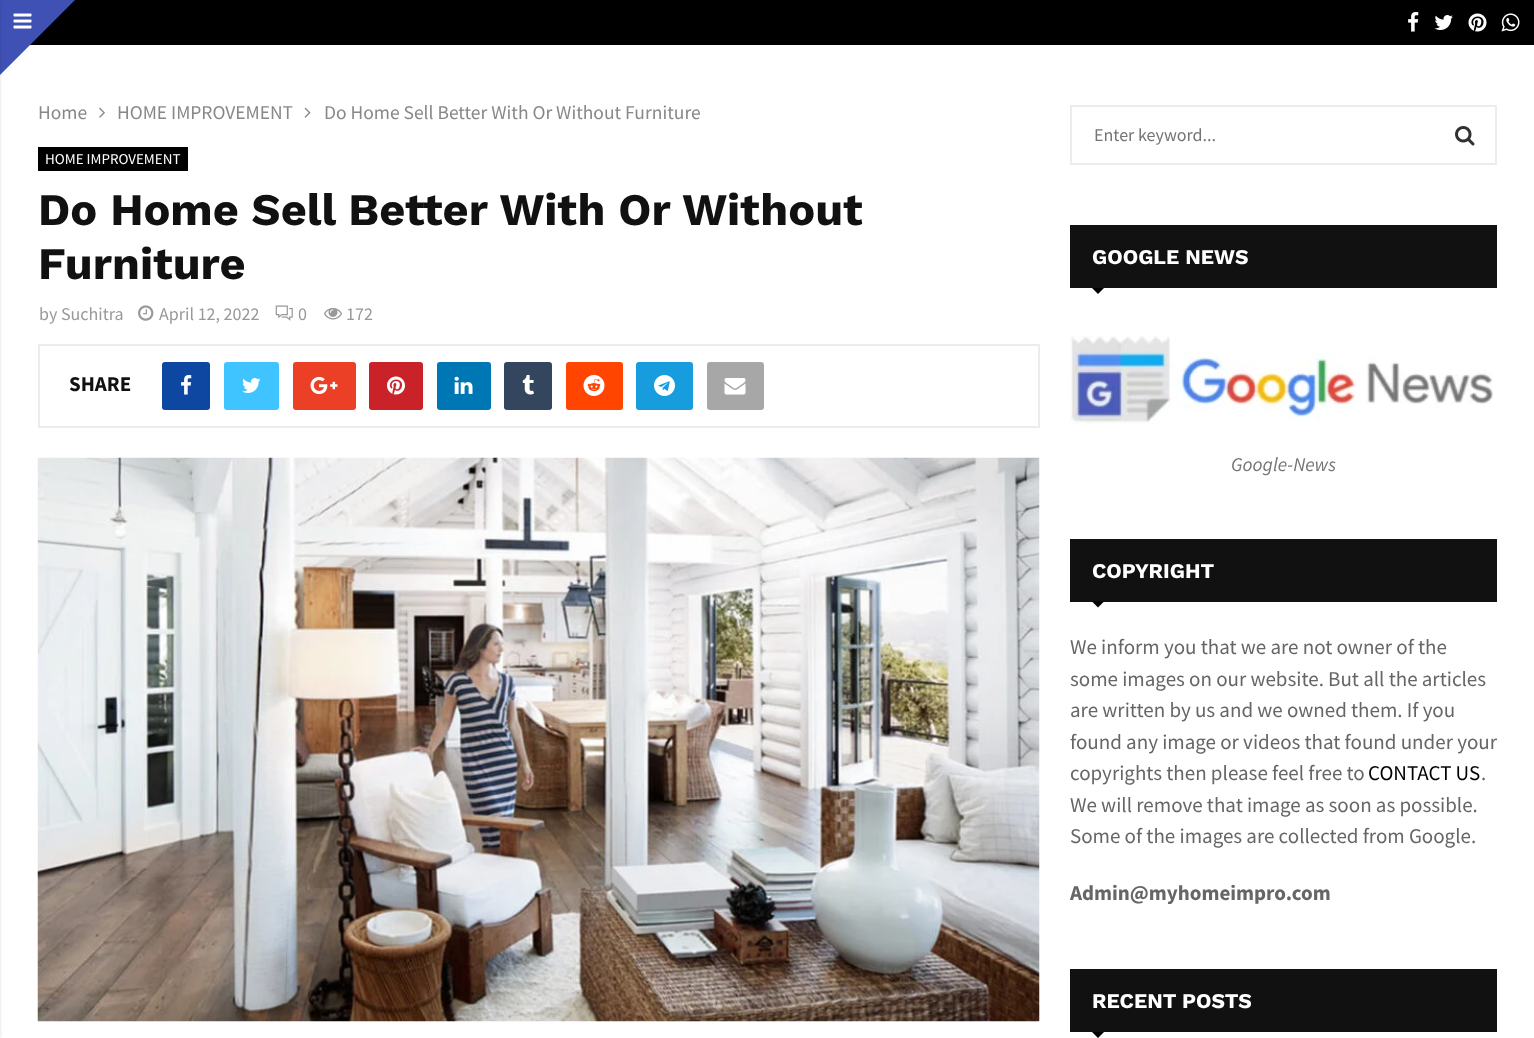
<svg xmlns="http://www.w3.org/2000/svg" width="1534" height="1038">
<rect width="100%" height="100%" fill="#fff"/>
<rect x="30" width="1504" height="45" fill="#000"/>
<path d="M0 0h75l-75 75z" fill="#3f51b5"/>
<image x="13" y="13" width="19" height="16" href="media/1.png"/>
<rect x="-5" width="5" height="1038" fill="#00000026" filter="blur(1.5px)"/>
<image x="1408" y="12" width="11" height="20" href="media/2.png"/>
<image x="1434" y="15" width="19" height="15" href="media/3.png"/>
<image x="1468" y="13" width="19" height="19" href="media/4.png"/>
<image x="1501" y="13" width="19" height="19" href="media/5.png"/>
<text x="38" y="119" style="font-family:Source Sans Pro;font-size:19.5px;fill:#888">Home</text>
<image x="99" y="107" width="6" height="11" href="media/6.png"/>
<text x="117" y="119" style="font-family:Source Sans Pro;font-size:19.5px;fill:#888">HOME IMPROVEMENT</text>
<image x="304" y="107" width="7" height="11" href="media/7.png"/>
<text x="324" y="119" style="font-family:Source Sans Pro;font-size:19.5px;fill:#888">Do Home Sell Better With Or Without Furniture</text>
<rect x="38" y="147" width="150" height="24" fill="#000"/>
<text x="45" y="164" style="font-family:Source Sans Pro;font-size:15px;fill:#fff">HOME IMPROVEMENT</text>
<text x="38" y="225" style="font-family:Work Sans;font-size:45px;font-weight:bold;fill:#111">Do Home Sell Better With Or Without</text>
<text x="38" y="279" style="font-family:Work Sans;font-size:45px;font-weight:bold;fill:#111">Furniture</text>
<text x="39" y="320" style="font-family:Source Sans Pro;font-size:18px;fill:#999">by Suchitra</text>
<image x="138" y="305" width="16" height="16" href="media/8.png"/>
<text x="159" y="320" style="font-family:Source Sans Pro;font-size:18px;fill:#999">April 12, 2022</text>
<image x="275" y="305" width="18" height="16" href="media/9.png"/>
<text x="298" y="320" style="font-family:Source Sans Pro;font-size:18px;fill:#999">0</text>
<image x="324" y="308" width="18" height="12" href="media/10.png"/>
<text x="346" y="320" style="font-family:Source Sans Pro;font-size:18px;fill:#999">172</text>
<rect x="39" y="345" width="1000" height="82" fill="none" stroke="#ececec" stroke-width="2"/>
<text x="69" y="391" style="font-family:Source Sans Pro;font-size:21px;font-weight:bold;fill:#111">SHARE</text>
<rect x="162" y="362" width="48" height="48" rx="3" fill="#0d47a1"/>
<image x="181" y="375" width="11" height="20" href="media/11.png"/>
<rect x="224" y="362" width="55" height="48" rx="3" fill="#40c4ff"/>
<image x="242" y="378" width="19" height="15" href="media/12.png"/>
<rect x="293" y="362" width="63" height="48" rx="3" fill="#eb4026"/>
<image x="310" y="376" width="28" height="19" href="media/13.png"/>
<rect x="369" y="362" width="54" height="48" rx="3" fill="#c92228"/>
<image x="387" y="376" width="18" height="19" href="media/14.png"/>
<rect x="437" y="362" width="54" height="48" rx="3" fill="#0077b5"/>
<image x="454" y="376" width="19" height="18" href="media/15.png"/>
<rect x="504" y="362" width="48" height="48" rx="3" fill="#34465d"/>
<image x="522" y="375" width="12" height="20" href="media/16.png"/>
<rect x="566" y="362" width="57" height="48" rx="3" fill="#ff4500"/>
<image x="583" y="375" width="22" height="21" href="media/17.png"/>
<rect x="636" y="362" width="57" height="48" rx="3" fill="#179cde"/>
<image x="654" y="375" width="21" height="21" href="media/18.png"/>
<rect x="707" y="362" width="57" height="48" rx="3" fill="#a7a7a7"/>
<image x="724" y="378" width="22" height="17" href="media/19.png"/>
<image x="37" y="457" width="1003" height="565" href="media/20.png"/>
<rect x="1071" y="106" width="425" height="58" fill="none" stroke="#ececec" stroke-width="2"/>
<text x="1094" y="141" style="font-family:Source Sans Pro;font-size:18px;fill:#757575">Enter keyword...</text>
<image x="1455" y="126" width="20" height="20" href="media/21.png"/>
<rect x="1070" y="225" width="427" height="63" fill="#111"/>
<text x="1092" y="264" style="font-family:Work Sans;font-size:21px;font-weight:bold;fill:#fff">GOOGLE NEWS</text>
<path d="M1092 288h12l-6 6z" fill="#000"/>
<image x="1069" y="336" width="424" height="88" href="media/22.png"/>
<text x="1231" y="471" style="font-family:Source Sans Pro;font-size:19.5px;font-style:italic;fill:#757575">Google-News</text>
<rect x="1070" y="539" width="427" height="63" fill="#111"/>
<text x="1092" y="578" style="font-family:Work Sans;font-size:21px;font-weight:bold;fill:#fff">COPYRIGHT</text>
<path d="M1092 601.5h12l-6 6z" fill="#000"/>
<text x="1070" y="654" style="font-family:Source Sans Pro;font-size:21px;fill:#666">We inform you that we are not owner of the</text>
<text x="1070" y="686" style="font-family:Source Sans Pro;font-size:21px;fill:#666">some images on our website. But all the articles</text>
<text x="1070" y="717" style="font-family:Source Sans Pro;font-size:21px;fill:#666">are written by us and we owned them. If you</text>
<text x="1070" y="749" style="font-family:Source Sans Pro;font-size:21px;fill:#666">found any image or videos that found under your</text>
<text x="1070" y="780" style="font-family:Source Sans Pro;font-size:21px;fill:#666">copyrights then please feel free to</text>
<text x="1368" y="780" style="font-family:Source Sans Pro;font-size:21px;fill:#000">CONTACT US</text>
<text x="1481" y="780" style="font-family:Source Sans Pro;font-size:21px;fill:#666">.</text>
<text x="1070" y="812" style="font-family:Source Sans Pro;font-size:21px;fill:#666">We will remove that image as soon as possible.</text>
<text x="1070" y="843" style="font-family:Source Sans Pro;font-size:21px;fill:#666">Some of the images are collected from Google.</text>
<text x="1070" y="900" style="font-family:Source Sans Pro;font-size:21px;font-weight:bold;fill:#666">Admin@myhomeimpro.com</text>
<rect x="1070" y="969" width="427" height="63" fill="#111"/>
<text x="1092" y="1008" style="font-family:Work Sans;font-size:21px;font-weight:bold;fill:#fff">RECENT POSTS</text>
<path d="M1092 1032h12l-6 6z" fill="#000"/>
</svg>
